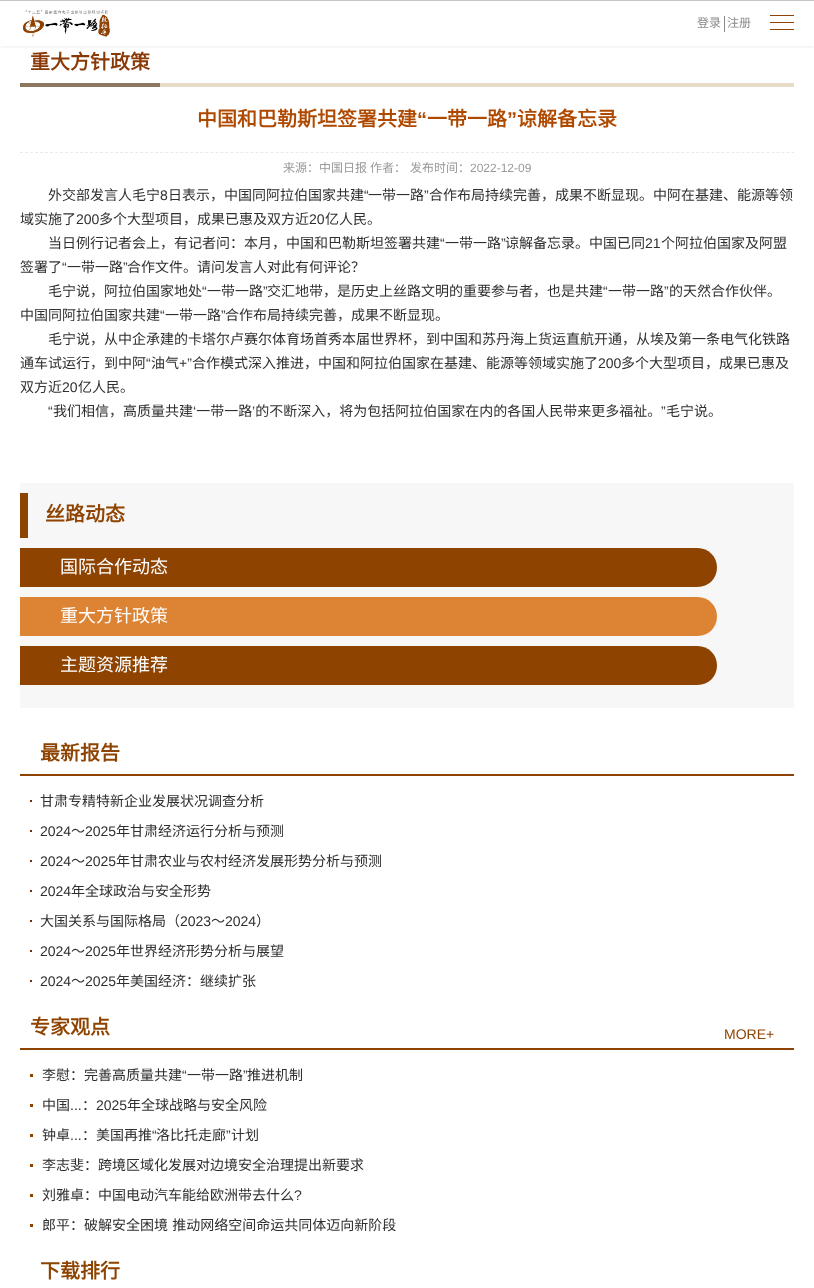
<svg xmlns="http://www.w3.org/2000/svg" width="814" height="1288">
<defs>
<clipPath id="clip1"><rect x="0" y="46" width="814" height="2"/></clipPath>
</defs>
<rect width="100%" height="100%" fill="#fff"/>
<g clip-path="url(#clip1)">
<rect width="814" height="46" fill="#0000001a" filter="blur(2.5px)"/>
</g>
<rect width="814" height="1" fill="#c6c6c6"/>
<image x="23" y="10" width="87" height="27" href="media/1.png"/>
<text x="697" y="27" style="font-family:Noto Sans CJK SC;font-size:12px;fill:#888">登录</text>
<rect x="724" y="16" width="1" height="16" fill="#888"/>
<text x="727" y="27" style="font-family:Noto Sans CJK SC;font-size:12px;fill:#888">注册</text>
<rect x="770" y="22" width="24" height="1" fill="#8e4300"/>
<rect x="770" y="15" width="24" height="1" fill="#8e4300"/>
<rect x="770" y="29" width="24" height="1" fill="#8e4300"/>
<rect x="160" y="83" width="634" height="4" fill="#e6dcc8"/>
<text x="30" y="69" style="font-family:Noto Sans CJK SC;font-size:20px;font-weight:bold;fill:#893905">重大方针政策</text>
<rect x="20" y="83" width="140" height="4" fill="#8c785f"/>
<path d="M20 152.5h774" fill="none" stroke="#eaeaea" stroke-dasharray="3 2.01"/>
<text x="197" y="126" style="font-family:Noto Sans CJK SC;font-size:20px;font-weight:bold;fill:#b04900">中国和巴勒斯坦签署共建</text>
<text x="417" y="126" style="font-family:Liberation Sans;font-size:20px;font-weight:bold;fill:#b04900">“</text>
<text x="427" y="126" style="font-family:Noto Sans CJK SC;font-size:20px;font-weight:bold;fill:#b04900">一带一路</text>
<text x="507" y="126" style="font-family:Liberation Sans;font-size:20px;font-weight:bold;fill:#b04900">”</text>
<text x="517" y="126" style="font-family:Noto Sans CJK SC;font-size:20px;font-weight:bold;fill:#b04900">谅解备忘录</text>
<text x="283" y="172" style="font-family:Noto Sans CJK SC;font-size:12px;fill:#999">来源：中国日报</text>
<text x="370" y="172" style="font-family:Noto Sans CJK SC;font-size:12px;fill:#999">作者：</text>
<text x="410" y="172" style="font-family:Noto Sans CJK SC;font-size:12px;fill:#999">发布时间：</text>
<text x="470" y="172" style="font-family:Liberation Sans;font-size:12px;fill:#999">2022-12-09</text>
<text x="48" y="200" style="font-family:Noto Sans CJK SC;font-size:14px;fill:#2f2f2f">外交部发言人毛宁</text>
<text x="160" y="200" style="font-family:Liberation Sans;font-size:14px;fill:#2f2f2f">8</text>
<text x="168" y="200" style="font-family:Noto Sans CJK SC;font-size:14px;fill:#2f2f2f">日表示，中国同阿拉伯国家共建</text>
<text x="364" y="200" style="font-family:Liberation Sans;font-size:14px;fill:#2f2f2f">“</text>
<text x="368" y="200" style="font-family:Noto Sans CJK SC;font-size:14px;fill:#2f2f2f">一带一路</text>
<text x="424" y="200" style="font-family:Liberation Sans;font-size:14px;fill:#2f2f2f">”</text>
<text x="429" y="200" style="font-family:Noto Sans CJK SC;font-size:14px;fill:#2f2f2f">合作布局持续完善，成果不断显现。中阿在基建、能源等领</text>
<text x="20" y="224" style="font-family:Noto Sans CJK SC;font-size:14px;fill:#2f2f2f">域实施了</text>
<text x="76" y="224" style="font-family:Liberation Sans;font-size:14px;fill:#2f2f2f">200</text>
<text x="99" y="224" style="font-family:Noto Sans CJK SC;font-size:14px;fill:#2f2f2f">多个大型项目，成果已惠及双方近</text>
<text x="309" y="224" style="font-family:Liberation Sans;font-size:14px;fill:#2f2f2f">20</text>
<text x="325" y="224" style="font-family:Noto Sans CJK SC;font-size:14px;fill:#2f2f2f">亿人民。</text>
<text x="48" y="248" style="font-family:Noto Sans CJK SC;font-size:14px;fill:#2f2f2f">当日例行记者会上，有记者问：本月，中国和巴勒斯坦签署共建</text>
<text x="440" y="248" style="font-family:Liberation Sans;font-size:14px;fill:#2f2f2f">“</text>
<text x="445" y="248" style="font-family:Noto Sans CJK SC;font-size:14px;fill:#2f2f2f">一带一路</text>
<text x="501" y="248" style="font-family:Liberation Sans;font-size:14px;fill:#2f2f2f">”</text>
<text x="505" y="248" style="font-family:Noto Sans CJK SC;font-size:14px;fill:#2f2f2f">谅解备忘录。中国已同</text>
<text x="645" y="248" style="font-family:Liberation Sans;font-size:14px;fill:#2f2f2f">21</text>
<text x="661" y="248" style="font-family:Noto Sans CJK SC;font-size:14px;fill:#2f2f2f">个阿拉伯国家及阿盟</text>
<text x="20" y="272" style="font-family:Noto Sans CJK SC;font-size:14px;fill:#2f2f2f">签署了</text>
<text x="62" y="272" style="font-family:Liberation Sans;font-size:14px;fill:#2f2f2f">“</text>
<text x="67" y="272" style="font-family:Noto Sans CJK SC;font-size:14px;fill:#2f2f2f">一带一路</text>
<text x="123" y="272" style="font-family:Liberation Sans;font-size:14px;fill:#2f2f2f">”</text>
<text x="127" y="272" style="font-family:Noto Sans CJK SC;font-size:14px;fill:#2f2f2f">合作文件。请问发言人对此有何评论？</text>
<text x="48" y="296" style="font-family:Noto Sans CJK SC;font-size:14px;fill:#2f2f2f">毛宁说，阿拉伯国家地处</text>
<text x="202" y="296" style="font-family:Liberation Sans;font-size:14px;fill:#2f2f2f">“</text>
<text x="207" y="296" style="font-family:Noto Sans CJK SC;font-size:14px;fill:#2f2f2f">一带一路</text>
<text x="263" y="296" style="font-family:Liberation Sans;font-size:14px;fill:#2f2f2f">”</text>
<text x="267" y="296" style="font-family:Noto Sans CJK SC;font-size:14px;fill:#2f2f2f">交汇地带，是历史上丝路文明的重要参与者，也是共建</text>
<text x="603" y="296" style="font-family:Liberation Sans;font-size:14px;fill:#2f2f2f">“</text>
<text x="608" y="296" style="font-family:Noto Sans CJK SC;font-size:14px;fill:#2f2f2f">一带一路</text>
<text x="664" y="296" style="font-family:Liberation Sans;font-size:14px;fill:#2f2f2f">”</text>
<text x="669" y="296" style="font-family:Noto Sans CJK SC;font-size:14px;fill:#2f2f2f">的天然合作伙伴。</text>
<text x="20" y="320" style="font-family:Noto Sans CJK SC;font-size:14px;fill:#2f2f2f">中国同阿拉伯国家共建</text>
<text x="160" y="320" style="font-family:Liberation Sans;font-size:14px;fill:#2f2f2f">“</text>
<text x="165" y="320" style="font-family:Noto Sans CJK SC;font-size:14px;fill:#2f2f2f">一带一路</text>
<text x="221" y="320" style="font-family:Liberation Sans;font-size:14px;fill:#2f2f2f">”</text>
<text x="225" y="320" style="font-family:Noto Sans CJK SC;font-size:14px;fill:#2f2f2f">合作布局持续完善，成果不断显现。</text>
<text x="48" y="344" style="font-family:Noto Sans CJK SC;font-size:14px;fill:#2f2f2f">毛宁说，从中企承建的卡塔尔卢赛尔体育场首秀本届世界杯，到中国和苏丹海上货运直航开通，从埃及第一条电气化铁路</text>
<text x="20" y="368" style="font-family:Noto Sans CJK SC;font-size:14px;fill:#2f2f2f">通车试运行，到中阿</text>
<text x="146" y="368" style="font-family:Liberation Sans;font-size:14px;fill:#2f2f2f">“</text>
<text x="151" y="368" style="font-family:Noto Sans CJK SC;font-size:14px;fill:#2f2f2f">油气</text>
<text x="179" y="368" style="font-family:Liberation Sans;font-size:14px;fill:#2f2f2f">+”</text>
<text x="192" y="368" style="font-family:Noto Sans CJK SC;font-size:14px;fill:#2f2f2f">合作模式深入推进，中国和阿拉伯国家在基建、能源等领域实施了</text>
<text x="598" y="368" style="font-family:Liberation Sans;font-size:14px;fill:#2f2f2f">200</text>
<text x="621" y="368" style="font-family:Noto Sans CJK SC;font-size:14px;fill:#2f2f2f">多个大型项目，成果已惠及</text>
<text x="20" y="392" style="font-family:Noto Sans CJK SC;font-size:14px;fill:#2f2f2f">双方近</text>
<text x="62" y="392" style="font-family:Liberation Sans;font-size:14px;fill:#2f2f2f">20</text>
<text x="78" y="392" style="font-family:Noto Sans CJK SC;font-size:14px;fill:#2f2f2f">亿人民。</text>
<text x="48" y="416" style="font-family:Liberation Sans;font-size:14px;fill:#2f2f2f">“</text>
<text x="53" y="416" style="font-family:Noto Sans CJK SC;font-size:14px;fill:#2f2f2f">我们相信，高质量共建 一带一路 的不断深入，将为包括阿拉伯国家在内的各国人民带来更多福祉。</text>
<text x="666" y="416" style="font-family:Noto Sans CJK SC;font-size:14px;fill:#2f2f2f">毛宁说。</text>
<text x="193" y="416" style="font-family:Liberation Sans;font-size:14px;fill:#2f2f2f">‘</text>
<text x="252" y="416" style="font-family:Liberation Sans;font-size:14px;fill:#2f2f2f">’</text>
<text x="661" y="416" style="font-family:Liberation Sans;font-size:14px;fill:#2f2f2f">”</text>
<rect x="20" y="483" width="774" height="225" fill="#f7f7f7"/>
<rect x="20" y="493" width="8" height="45" fill="#8e4300"/>
<text x="45" y="521" style="font-family:Noto Sans CJK SC;font-size:20px;font-weight:bold;fill:#8e4300">丝路动态</text>
<path d="M20 548h677.5c11 0 19.5 8.5 19.5 19.5c0 11-8.5 19.5-19.5 19.5h-677.5z" fill="#8e4300"/>
<text x="60" y="573" style="font-family:Noto Sans CJK SC;font-size:18px;fill:#fff">国际合作动态</text>
<path d="M20 597h677.5c11 0 19.5 8.5 19.5 19.5c0 11-8.5 19.5-19.5 19.5h-677.5z" fill="#dd8334"/>
<text x="60" y="622" style="font-family:Noto Sans CJK SC;font-size:18px;fill:#fff">重大方针政策</text>
<path d="M20 646h677.5c11 0 19.5 8.5 19.5 19.5c0 11-8.5 19.5-19.5 19.5h-677.5z" fill="#8e4300"/>
<text x="60" y="671" style="font-family:Noto Sans CJK SC;font-size:18px;fill:#fff">主题资源推荐</text>
<rect x="20" y="774" width="774" height="2" fill="#8e4300"/>
<text x="40" y="760" style="font-family:Noto Sans CJK SC;font-size:20px;font-weight:bold;fill:#8e4300">最新报告</text>
<rect x="30" y="800" width="2" height="2" fill="#732c01"/>
<text x="40" y="806" style="font-family:Noto Sans CJK SC;font-size:14px;fill:#2f2f2f">甘肃专精特新企业发展状况调查分析</text>
<rect x="30" y="830" width="2" height="2" fill="#732c01"/>
<text x="40" y="836" style="font-family:Liberation Sans;font-size:14px;fill:#2f2f2f">2024</text>
<text x="71" y="836" style="font-family:Noto Sans CJK SC;font-size:14px;fill:#2f2f2f">～</text>
<text x="85" y="836" style="font-family:Liberation Sans;font-size:14px;fill:#2f2f2f">2025</text>
<text x="116" y="836" style="font-family:Noto Sans CJK SC;font-size:14px;fill:#2f2f2f">年甘肃经济运行分析与预测</text>
<rect x="30" y="860" width="2" height="2" fill="#732c01"/>
<text x="40" y="866" style="font-family:Liberation Sans;font-size:14px;fill:#2f2f2f">2024</text>
<text x="71" y="866" style="font-family:Noto Sans CJK SC;font-size:14px;fill:#2f2f2f">～</text>
<text x="85" y="866" style="font-family:Liberation Sans;font-size:14px;fill:#2f2f2f">2025</text>
<text x="116" y="866" style="font-family:Noto Sans CJK SC;font-size:14px;fill:#2f2f2f">年甘肃农业与农村经济发展形势分析与预测</text>
<rect x="30" y="890" width="2" height="2" fill="#732c01"/>
<text x="40" y="896" style="font-family:Liberation Sans;font-size:14px;fill:#2f2f2f">2024</text>
<text x="71" y="896" style="font-family:Noto Sans CJK SC;font-size:14px;fill:#2f2f2f">年全球政治与安全形势</text>
<rect x="30" y="920" width="2" height="2" fill="#732c01"/>
<text x="40" y="926" style="font-family:Noto Sans CJK SC;font-size:14px;fill:#2f2f2f">大国关系与国际格局（</text>
<text x="180" y="926" style="font-family:Liberation Sans;font-size:14px;fill:#2f2f2f">2023</text>
<text x="211" y="926" style="font-family:Noto Sans CJK SC;font-size:14px;fill:#2f2f2f">～</text>
<text x="225" y="926" style="font-family:Liberation Sans;font-size:14px;fill:#2f2f2f">2024</text>
<text x="256" y="926" style="font-family:Noto Sans CJK SC;font-size:14px;fill:#2f2f2f">）</text>
<rect x="30" y="950" width="2" height="2" fill="#732c01"/>
<text x="40" y="956" style="font-family:Liberation Sans;font-size:14px;fill:#2f2f2f">2024</text>
<text x="71" y="956" style="font-family:Noto Sans CJK SC;font-size:14px;fill:#2f2f2f">～</text>
<text x="85" y="956" style="font-family:Liberation Sans;font-size:14px;fill:#2f2f2f">2025</text>
<text x="116" y="956" style="font-family:Noto Sans CJK SC;font-size:14px;fill:#2f2f2f">年世界经济形势分析与展望</text>
<rect x="30" y="980" width="2" height="2" fill="#732c01"/>
<text x="40" y="986" style="font-family:Liberation Sans;font-size:14px;fill:#2f2f2f">2024</text>
<text x="71" y="986" style="font-family:Noto Sans CJK SC;font-size:14px;fill:#2f2f2f">～</text>
<text x="85" y="986" style="font-family:Liberation Sans;font-size:14px;fill:#2f2f2f">2025</text>
<text x="116" y="986" style="font-family:Noto Sans CJK SC;font-size:14px;fill:#2f2f2f">年美国经济：继续扩张</text>
<rect x="20" y="1048" width="774" height="2" fill="#8e4300"/>
<text x="30" y="1034" style="font-family:Noto Sans CJK SC;font-size:20px;font-weight:bold;fill:#8e4300">专家观点</text>
<text x="724" y="1039" style="font-family:Liberation Sans;font-size:14px;fill:#8e4300">MORE+</text>
<rect x="30" y="1074" width="3" height="3" fill="#8e4300"/>
<text x="42" y="1080" style="font-family:Noto Sans CJK SC;font-size:14px;fill:#2f2f2f">李慰：完善高质量共建</text>
<text x="182" y="1080" style="font-family:Liberation Sans;font-size:14px;fill:#2f2f2f">“</text>
<text x="187" y="1080" style="font-family:Noto Sans CJK SC;font-size:14px;fill:#2f2f2f">一带一路</text>
<text x="243" y="1080" style="font-family:Liberation Sans;font-size:14px;fill:#2f2f2f">”</text>
<text x="247" y="1080" style="font-family:Noto Sans CJK SC;font-size:14px;fill:#2f2f2f">推进机制</text>
<rect x="30" y="1104" width="3" height="3" fill="#8e4300"/>
<text x="42" y="1110" style="font-family:Noto Sans CJK SC;font-size:14px;fill:#2f2f2f">中国</text>
<text x="70" y="1110" style="font-family:Liberation Sans;font-size:14px;fill:#2f2f2f">...</text>
<text x="82" y="1110" style="font-family:Noto Sans CJK SC;font-size:14px;fill:#2f2f2f">：</text>
<text x="96" y="1110" style="font-family:Liberation Sans;font-size:14px;fill:#2f2f2f">2025</text>
<text x="127" y="1110" style="font-family:Noto Sans CJK SC;font-size:14px;fill:#2f2f2f">年全球战略与安全风险</text>
<rect x="30" y="1134" width="3" height="3" fill="#8e4300"/>
<text x="42" y="1140" style="font-family:Noto Sans CJK SC;font-size:14px;fill:#2f2f2f">钟卓</text>
<text x="82" y="1140" style="font-family:Noto Sans CJK SC;font-size:14px;fill:#2f2f2f">：美国再推</text>
<text x="152" y="1140" style="font-family:Liberation Sans;font-size:14px;fill:#2f2f2f">“</text>
<text x="156" y="1140" style="font-family:Noto Sans CJK SC;font-size:14px;fill:#2f2f2f">洛比托走廊</text>
<text x="226" y="1140" style="font-family:Liberation Sans;font-size:14px;fill:#2f2f2f">”</text>
<text x="231" y="1140" style="font-family:Noto Sans CJK SC;font-size:14px;fill:#2f2f2f">计划</text>
<text x="70" y="1140" style="font-family:Liberation Sans;font-size:14px;fill:#2f2f2f">...</text>
<rect x="30" y="1164" width="3" height="3" fill="#8e4300"/>
<text x="42" y="1170" style="font-family:Noto Sans CJK SC;font-size:14px;fill:#2f2f2f">李志斐：跨境区域化发展对边境安全治理提出新要求</text>
<rect x="30" y="1194" width="3" height="3" fill="#8e4300"/>
<text x="42" y="1200" style="font-family:Noto Sans CJK SC;font-size:14px;fill:#2f2f2f">刘雅卓：中国电动汽车能给欧洲带去什么</text>
<text x="294" y="1200" style="font-family:Liberation Sans;font-size:14px;fill:#2f2f2f">?</text>
<rect x="30" y="1224" width="3" height="3" fill="#8e4300"/>
<text x="42" y="1230" word-spacing="1" style="font-family:Noto Sans CJK SC;font-size:14px;fill:#2f2f2f">郎平：破解安全困境 推动网络空间命运共同体迈向新阶段</text>
<text x="40" y="1278" style="font-family:Noto Sans CJK SC;font-size:20px;font-weight:bold;fill:#8e4300">下载排行</text>
</svg>
